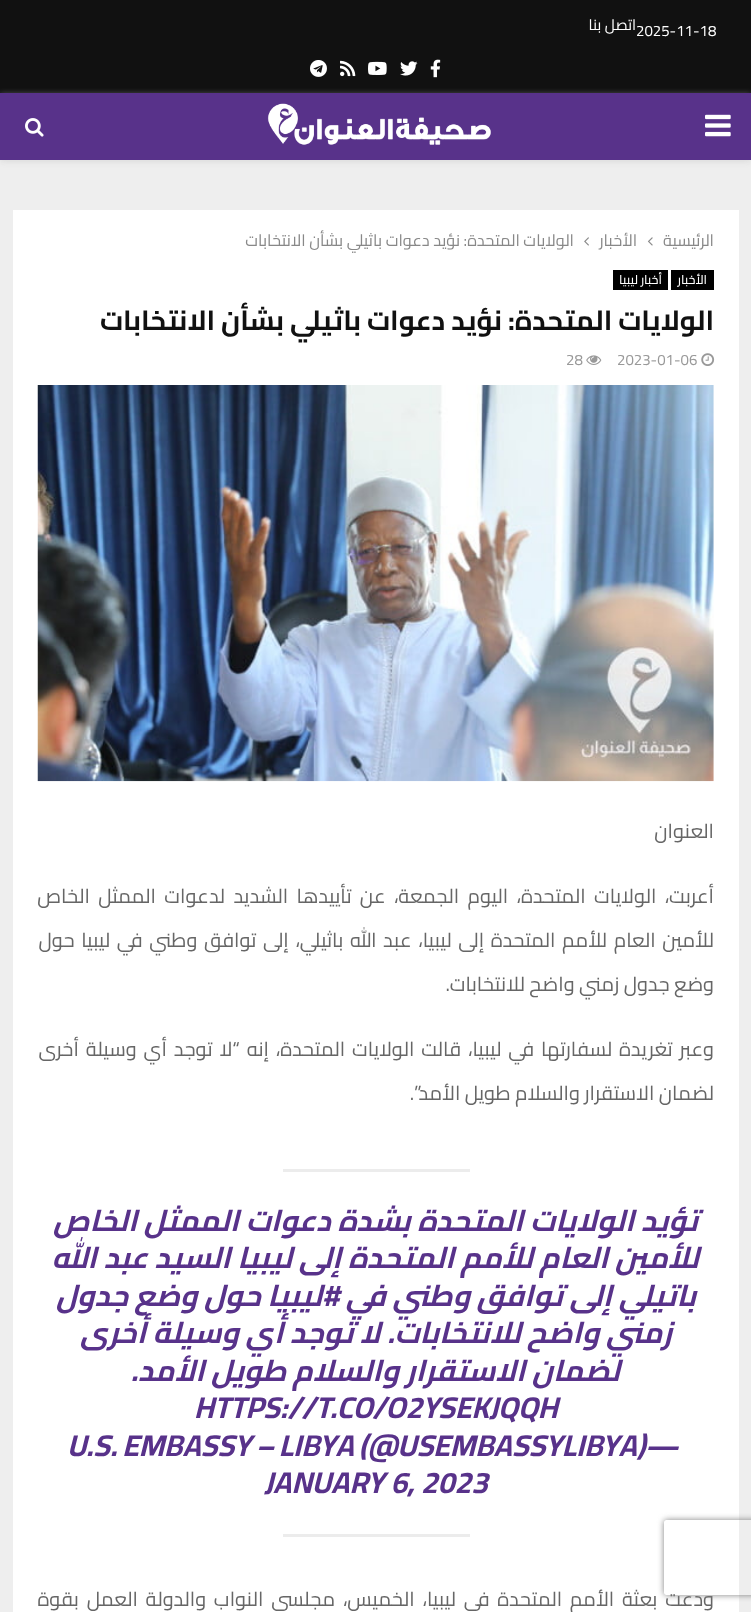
<svg xmlns="http://www.w3.org/2000/svg" width="751" height="1612">
<defs>
<clipPath id="clip1"><path d="M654 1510h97v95h-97zm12.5 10h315c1.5 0 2.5 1 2.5 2.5v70c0 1.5-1 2.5-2.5 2.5h-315c-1.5 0-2.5-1-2.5-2.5v-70c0-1.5 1-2.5 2.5-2.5z" clip-rule="evenodd"/></clipPath>
</defs>
<rect width="100%" height="100%" fill="#eee"/>
<rect width="751" height="93" fill="#111"/>
<text x="636" y="36" style="font-family:Cairo;font-size:15px;fill:#fff">2025-11-18</text>
<text x="636" y="30" style="font-family:Cairo;font-size:15px;direction:rtl;fill:#fff">اتصل بنا</text>
<image x="430" y="59" width="11" height="19" href="media/1.png"/>
<image x="400" y="61" width="18" height="15" href="media/2.png"/>
<image x="368" y="61" width="19" height="14" href="media/3.png"/>
<image x="340" y="60" width="16" height="17" href="media/4.png"/>
<image x="310" y="60" width="17" height="17" href="media/5.png"/>
<rect y="94" width="751" height="67" fill="#bebebe75" filter="blur(3px)"/>
<rect y="93" width="751" height="67" fill="#58328a"/>
<image x="705" y="114" width="26" height="23" href="media/6.png"/>
<image x="267" y="103" width="224" height="42" href="media/7.png"/>
<image x="25" y="118" width="19" height="19" href="media/8.png"/>
<rect x="13" y="210" width="726" height="1402" fill="#fff"/>
<text x="714" y="246" style="font-family:Cairo;font-size:16.25px;direction:rtl;fill:#888">الرئيسية</text>
<image x="647" y="237" width="6" height="9" href="media/9.png"/>
<text x="637" y="246" style="font-family:Cairo;font-size:16.25px;direction:rtl;fill:#888">الأخبار</text>
<image x="584" y="237" width="5" height="9" href="media/10.png"/>
<text x="574" y="246" style="font-family:Cairo;font-size:16.25px;direction:rtl;fill:#888">الولايات المتحدة: نؤيد دعوات باثيلي بشأن الانتخابات</text>
<rect x="671" y="270" width="43" height="20" fill="#000"/>
<text x="707" y="284" style="font-family:Cairo;font-size:12.5px;font-weight:500;direction:rtl;fill:#fff">الأخبار</text>
<rect x="613" y="270" width="55" height="20" fill="#000"/>
<text x="662" y="284" style="font-family:Cairo;font-size:12.5px;font-weight:500;direction:rtl;fill:#fff">أخبار ليبيا</text>
<text x="714" y="330" style="font-family:Cairo;font-size:27.5px;font-weight:bold;direction:rtl;fill:#111">الولايات المتحدة: نؤيد دعوات باثيلي بشأن الانتخابات</text>
<image x="701" y="353" width="14" height="13" href="media/11.png"/>
<text x="617" y="365" style="font-family:Cairo;font-size:15px;fill:#999">2023-01-06</text>
<image x="586" y="355" width="16" height="10" href="media/12.png"/>
<text x="566" y="365" style="font-family:Cairo;font-size:15px;fill:#999">28</text>
<image x="37" y="385" width="677" height="397" href="media/13.png"/>
<text x="714" y="838" style="font-family:Cairo;font-size:20px;direction:rtl;fill:#666">العنوان</text>
<text x="714" y="903" word-spacing="3.9" style="font-family:Cairo;font-size:20px;direction:rtl;fill:#666">أعربت، الولايات المتحدة، اليوم الجمعة، عن تأييدها الشديد لدعوات الممثل الخاص</text>
<text x="714" y="947" word-spacing="2.25" style="font-family:Cairo;font-size:20px;direction:rtl;fill:#666">للأمين العام للأمم المتحدة إلى ليبيا، عبد الله باثيلي، إلى توافق وطني في ليبيا حول</text>
<text x="714" y="991" style="font-family:Cairo;font-size:20px;direction:rtl;fill:#666">وضع جدول زمني واضح للانتخابات.</text>
<text x="714" y="1056" word-spacing="2.5" style="font-family:Cairo;font-size:20px;direction:rtl;fill:#666">وعبر تغريدة لسفارتها في ليبيا، قالت الولايات المتحدة، إنه “لا توجد أي وسيلة أخرى</text>
<text x="714" y="1100" style="font-family:Cairo;font-size:20px;direction:rtl;fill:#666">لضمان الاستقرار والسلام طويل الأمد”.</text>
<rect x="283" y="1169" width="187" height="3" fill="#ececec"/>
<text x="698" y="1231" style="font-family:Cairo;font-size:30px;font-weight:bold;font-style:italic;direction:rtl;fill:#58328a">تؤيد الولايات المتحدة بشدة دعوات الممثل الخاص</text>
<text x="699" y="1268" style="font-family:Cairo;font-size:30px;font-weight:bold;font-style:italic;direction:rtl;fill:#58328a">للأمين العام للأمم المتحدة إلى ليبيا السيد عبد الله</text>
<text x="696" y="1306" style="font-family:Cairo;font-size:30px;font-weight:bold;font-style:italic;direction:rtl;fill:#58328a">باتيلي إلى توافق وطني في</text>
<text x="339" y="1306" style="font-family:Cairo;font-size:30px;font-weight:bold;font-style:italic;direction:rtl;fill:#58328a">#ليبيا</text>
<text x="261" y="1306" style="font-family:Cairo;font-size:30px;font-weight:bold;font-style:italic;direction:rtl;fill:#58328a">حول وضع جدول</text>
<text x="672" y="1343" style="font-family:Cairo;font-size:30px;font-weight:bold;font-style:italic;direction:rtl;fill:#58328a">زمني واضح للانتخابات. لا توجد أي وسيلة أخرى</text>
<text x="620" y="1381" style="font-family:Cairo;font-size:30px;font-weight:bold;font-style:italic;direction:rtl;fill:#58328a">لضمان الاستقرار والسلام طويل الأمد.</text>
<text x="194" y="1418" style="font-family:Cairo;font-size:30px;font-weight:bold;font-style:italic;fill:#58328a">HTTPS://T.CO/O2YSEKJQQH</text>
<text x="645" y="1456" style="font-family:Cairo;font-size:30px;font-weight:bold;font-style:italic;fill:#58328a">—</text>
<text x="67" y="1456" word-spacing="-1.5" style="font-family:Cairo;font-size:30px;font-weight:bold;font-style:italic;fill:#58328a">U.S. EMBASSY – LIBYA (@USEMBASSYLIBYA)</text>
<text x="264" y="1493" style="font-family:Cairo;font-size:30px;font-weight:bold;font-style:italic;fill:#58328a">JANUARY 6, 2023</text>
<rect x="283" y="1534" width="187" height="3" fill="#ececec"/>
<text x="714" y="1606" word-spacing="3.4" style="font-family:Cairo;font-size:20px;direction:rtl;fill:#666">ودعت بعثة الأمم المتحدة في ليبيا، الخميس، مجلسي النواب والدولة العمل بقوة</text>
<g clip-path="url(#clip1)">
<rect x="664" y="1520" width="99" height="75" rx="2.5" fill="#808080" filter="blur(3px)"/>
</g>
</svg>
